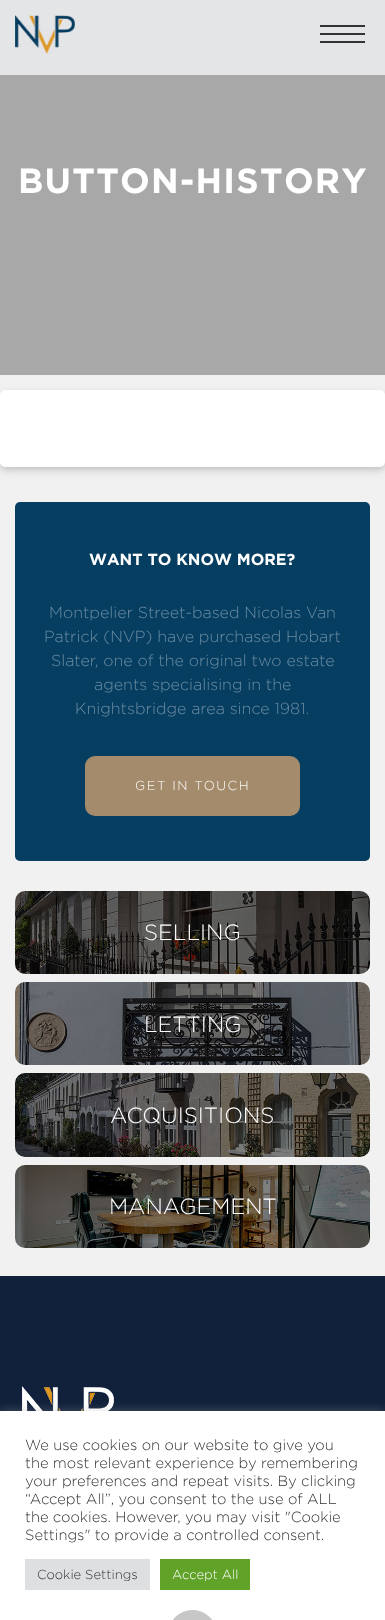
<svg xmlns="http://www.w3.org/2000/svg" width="385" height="1620">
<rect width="100%" height="100%" fill="#f1f1f1"/>
<rect width="385" height="75" fill="#e4e5e7"/>
<image x="15" y="15" width="60" height="39" href="media/1.png"/>
<rect x="320" y="33" width="45" height="2" fill="#333"/>
<rect x="320" y="25" width="45" height="2" fill="#333"/>
<rect x="320" y="41" width="45" height="2" fill="#333"/>
<rect y="75" width="385" height="300" fill="#a8a8a8"/>
<text x="18" y="193" style="font-family:Gotham;font-size:35px;font-weight:bold;letter-spacing:1.25px;fill:#fff">BUTTON-HISTORY</text>
<rect y="392" width="385" height="77" rx="5" fill="#00000014" filter="blur(2px)"/>
<rect y="394" width="385" height="77" rx="5" fill="#0000001f" filter="blur(4px)"/>
<rect y="390" width="385" height="77" rx="5" fill="#fff"/>
<rect x="15" y="502" width="355" height="359" rx="5" fill="#063e61"/>
<text x="89" y="565" style="font-family:Gotham;font-size:16px;font-weight:bold;fill:#fff">WANT TO KNOW MORE?</text>
<text x="49" y="618" style="font-family:Gotham;font-size:16px;font-weight:300;fill:#6a8ba0">Montpelier Street-based Nicolas Van</text>
<text x="44" y="642" style="font-family:Gotham;font-size:16px;font-weight:300;fill:#6a8ba0">Patrick (NVP) have purchased Hobart</text>
<text x="51" y="666" style="font-family:Gotham;font-size:16px;font-weight:300;fill:#6a8ba0">Slater, one of the original two estate</text>
<text x="94" y="690" style="font-family:Gotham;font-size:16px;font-weight:300;fill:#6a8ba0">agents specialising in the</text>
<text x="75" y="714" style="font-family:Gotham;font-size:16px;font-weight:300;fill:#6a8ba0">Knightsbridge area since 1981.</text>
<rect x="85" y="756" width="215" height="60" rx="10" fill="#a48b6c"/>
<text x="135" y="790" style="font-family:Gotham;font-size:13px;font-weight:300;letter-spacing:1.5px;fill:#fff">GET IN TOUCH</text>
<image x="15" y="891" width="355" height="83" href="media/2.png"/>
<text x="144" y="940" style="font-family:Gotham;font-size:22px;font-weight:300;fill:#fff">SELLING</text>
<image x="15" y="982" width="355" height="83" href="media/3.png"/>
<text x="144" y="1032" style="font-family:Gotham;font-size:22px;font-weight:300;fill:#fff">LETTING</text>
<image x="15" y="1073" width="355" height="84" href="media/4.png"/>
<text x="110" y="1123" style="font-family:Gotham;font-size:22px;font-weight:300;fill:#fff">ACQUISITIONS</text>
<image x="15" y="1165" width="355" height="83" href="media/5.png"/>
<text x="109" y="1214" style="font-family:Gotham;font-size:22px;font-weight:300;fill:#fff">MANAGEMENT</text>
<rect y="1276" width="385" height="135" fill="#11213b"/>
<image x="22" y="1386" width="92" height="25" href="media/6.png"/>
<rect y="1410" width="385" height="209" fill="#acabab4d" filter="blur(5px)"/>
<rect y="1411" width="385" height="209" fill="#fff"/>
<text x="25" y="1450" style="font-family:Gotham;font-size:14.7px;font-weight:300;fill:#333">We use cookies on our website to give you</text>
<text x="25" y="1468" style="font-family:Gotham;font-size:14.7px;font-weight:300;fill:#333">the most relevant experience by remembering</text>
<text x="25" y="1486" style="font-family:Gotham;font-size:14.7px;font-weight:300;fill:#333">your preferences and repeat visits. By clicking</text>
<text x="25" y="1504" style="font-family:Gotham;font-size:14.7px;font-weight:300;fill:#333">“Accept All”, you consent to the use of ALL</text>
<text x="25" y="1522" style="font-family:Gotham;font-size:14.7px;font-weight:300;fill:#333">the cookies. However, you may visit "Cookie</text>
<text x="25" y="1540" style="font-family:Gotham;font-size:14.7px;font-weight:300;fill:#333">Settings" to provide a controlled consent.</text>
<rect x="25" y="1559" width="125" height="31" fill="#dedfe0"/>
<text x="37" y="1579" style="font-family:Gotham;font-size:13px;font-weight:300;fill:#333">Cookie Settings</text>
<rect x="160" y="1559" width="90" height="31" fill="#61a229"/>
<text x="172" y="1579" style="font-family:Gotham;font-size:13px;font-weight:300;fill:#fff">Accept All</text>
<image x="173" y="1610" width="39" height="10" href="media/7.png"/>
</svg>
